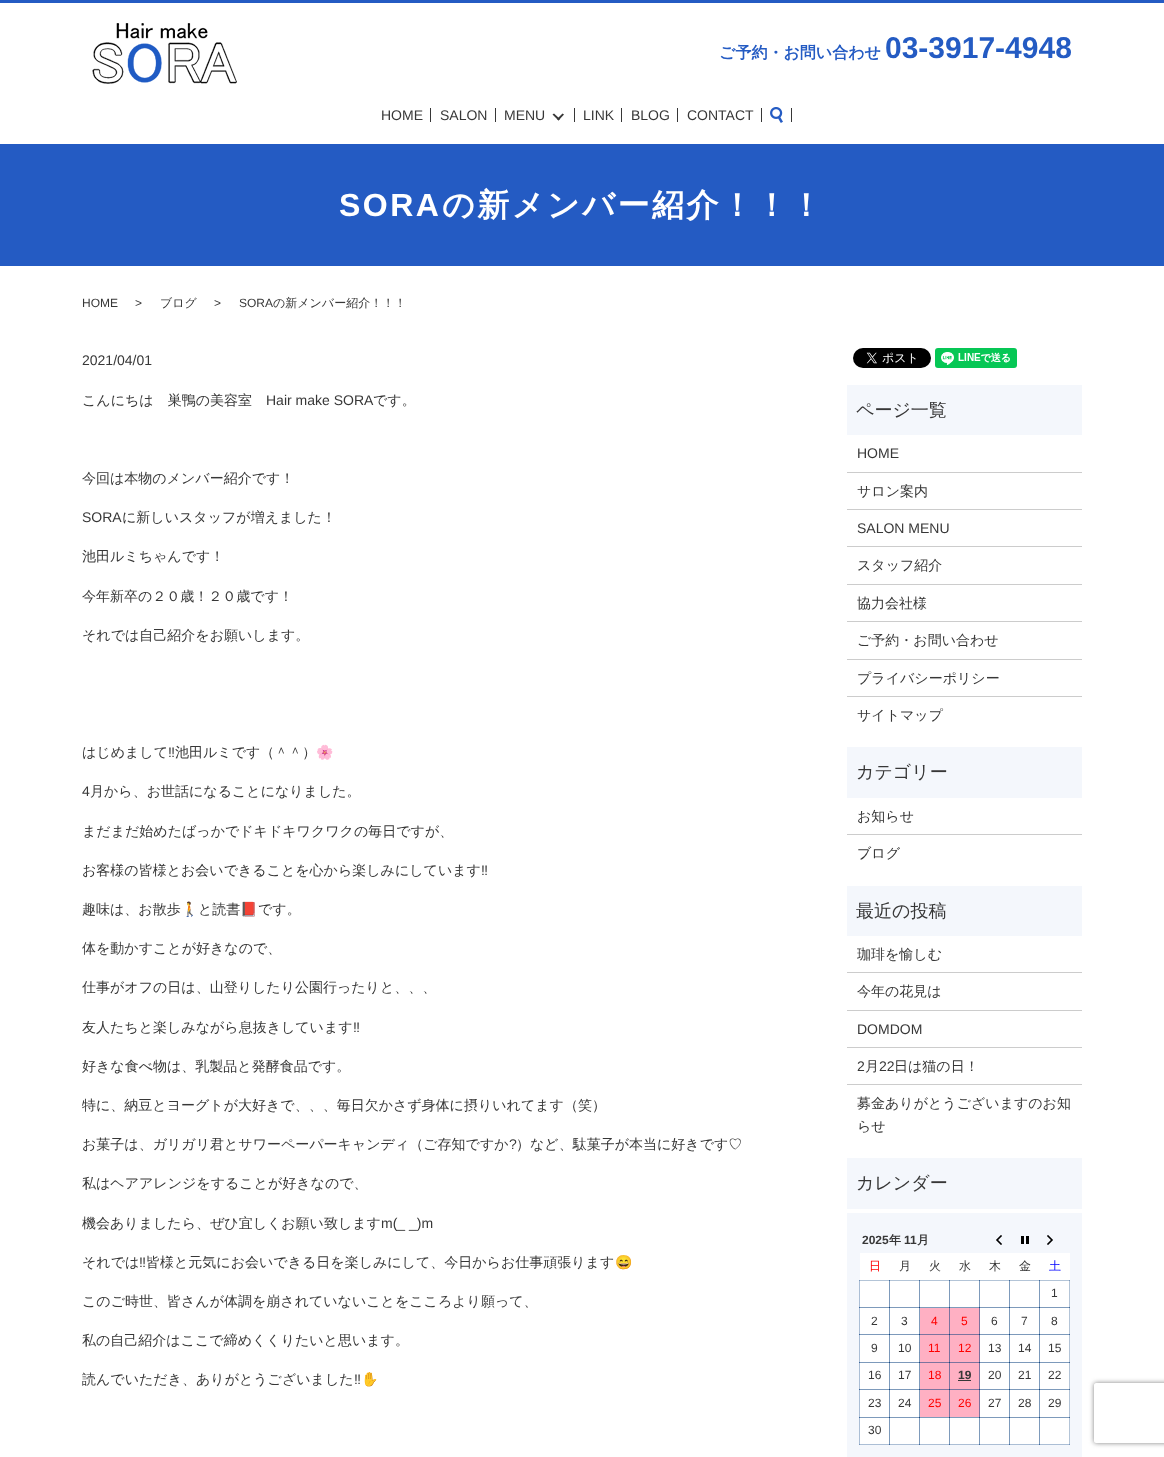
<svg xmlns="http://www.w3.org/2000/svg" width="1164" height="1457">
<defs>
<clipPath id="clip1"><path d="M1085 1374h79v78h-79zm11 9h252c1 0 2 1 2 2v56c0 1-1 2-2 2h-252c-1 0-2-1-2-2v-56c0-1 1-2 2-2z" clip-rule="evenodd"/></clipPath>
</defs>
<rect width="100%" height="100%" fill="#fff"/>
<rect width="1164" height="3" fill="#245bc3"/>
<image x="92" y="23" width="145" height="61" href="media/1.png"/>
<text x="719" y="58" style="font-family:WenQuanYi Zen Hei;font-size:16px;font-weight:bold;fill:#245bc3">ご予約・お問い合わせ</text>
<text x="885" y="58" style="font-family:Liberation Sans;font-size:30px;font-weight:bold;fill:#245bc3">03-3917-4948</text>
<text x="381" y="120" style="font-family:Liberation Sans;font-size:14px;fill:#373737">HOME</text>
<rect x="430" y="108" width="1" height="14" fill="#373737"/>
<text x="440" y="120" style="font-family:Liberation Sans;font-size:14px;fill:#373737">SALON</text>
<rect x="495" y="108" width="1" height="14" fill="#373737"/>
<text x="504" y="120" style="font-family:Liberation Sans;font-size:14px;fill:#373737">MENU</text>
<path d="M564 114.5l-5.5 6l-1.5-1.5l5.5-5.5z" fill="#373737"/>
<path d="M560 119l-1.5 1.5l-6-6l1.5-1z" fill="#373737"/>
<rect x="574" y="108" width="1" height="14" fill="#373737"/>
<text x="583" y="120" style="font-family:Liberation Sans;font-size:14px;fill:#373737">LINK</text>
<rect x="621" y="108" width="1" height="14" fill="#373737"/>
<text x="631" y="120" style="font-family:Liberation Sans;font-size:14px;fill:#373737">BLOG</text>
<rect x="677" y="108" width="1" height="14" fill="#373737"/>
<text x="687" y="120" style="font-family:Liberation Sans;font-size:14px;fill:#373737">CONTACT</text>
<rect x="761" y="108" width="1" height="14" fill="#373737"/>
<image x="770" y="107" width="13" height="16" href="media/2.png"/>
<rect x="791" y="108" width="1" height="14" fill="#373737"/>
<rect y="144" width="1164" height="122" fill="#245bc3"/>
<text x="339" y="216" style="font-family:Liberation Sans;font-size:32px;font-weight:bold;letter-spacing:2.5px;fill:#fff">SORA</text>
<text x="442" y="216" style="font-family:WenQuanYi Zen Hei;font-size:32px;font-weight:bold;letter-spacing:2.5px;fill:#fff">の新メンバー紹介！！！</text>
<text x="82" y="307" style="font-family:Liberation Sans;font-size:12px;fill:#373737">HOME</text>
<text x="135" y="307" style="font-family:Liberation Sans;font-size:12px;fill:#373737">&gt;</text>
<text x="160" y="307" style="font-family:WenQuanYi Zen Hei;font-size:12px;font-weight:500;fill:#373737">ブログ</text>
<text x="214" y="307" style="font-family:Liberation Sans;font-size:12px;fill:#373737">&gt;</text>
<text x="239" y="307" style="font-family:Liberation Sans;font-size:12px;fill:#373737">SORA</text>
<text x="273" y="307" style="font-family:WenQuanYi Zen Hei;font-size:12px;font-weight:500;fill:#373737">の新メンバー紹介！！！</text>
<text x="82" y="365" style="font-family:Liberation Sans;font-size:14px;fill:#373737">2021/04/01</text>
<text x="82" y="405" style="font-family:WenQuanYi Zen Hei;font-size:14px;font-weight:500;fill:#373737">こんにちは　巣鴨の美容室</text>
<text x="266" y="405" style="font-family:Liberation Sans;font-size:14px;fill:#373737">Hair make SORA</text>
<text x="373" y="405" style="font-family:WenQuanYi Zen Hei;font-size:14px;font-weight:500;fill:#373737">です。</text>
<text x="82" y="483" style="font-family:WenQuanYi Zen Hei;font-size:14px;font-weight:500;fill:#373737">今回は本物のメンバー紹介です！</text>
<text x="82" y="522" style="font-family:Liberation Sans;font-size:14px;fill:#373737">SORA</text>
<text x="122" y="522" style="font-family:WenQuanYi Zen Hei;font-size:14px;font-weight:500;fill:#373737">に新しいスタッフが増えました！</text>
<text x="82" y="561" style="font-family:WenQuanYi Zen Hei;font-size:14px;font-weight:500;fill:#373737">池田ルミちゃんです！</text>
<text x="82" y="601" style="font-family:WenQuanYi Zen Hei;font-size:14px;font-weight:500;fill:#373737">今年新卒の２０歳！２０歳です！</text>
<text x="82" y="640" style="font-family:WenQuanYi Zen Hei;font-size:14px;font-weight:500;fill:#373737">それでは自己紹介をお願いします。</text>
<text x="82" y="757" style="font-family:WenQuanYi Zen Hei;font-size:14px;font-weight:500;fill:#373737">はじめまして</text>
<text x="168" y="757" style="font-family:Liberation Sans;font-size:14px;fill:#373737">‼︎</text>
<text x="175" y="757" style="font-family:WenQuanYi Zen Hei;font-size:14px;font-weight:500;fill:#373737">池田ルミです（＾＾）</text>
<text x="316" y="757" style="font-family:Noto Color Emoji;font-size:14px;fill:#373737">🌸</text>
<text x="82" y="796" style="font-family:Liberation Sans;font-size:14px;fill:#373737">4</text>
<text x="90" y="796" style="font-family:WenQuanYi Zen Hei;font-size:14px;font-weight:500;fill:#373737">月から、お世話になることになりました。</text>
<text x="82" y="836" style="font-family:WenQuanYi Zen Hei;font-size:14px;font-weight:500;fill:#373737">まだまだ始めたばっかでドキドキワクワクの毎日ですが、</text>
<text x="82" y="875" style="font-family:WenQuanYi Zen Hei;font-size:14px;font-weight:500;fill:#373737">お客様の皆様とお会いできることを心から楽しみにしています</text>
<text x="481" y="875" style="font-family:Liberation Sans;font-size:14px;fill:#373737">‼︎</text>
<text x="82" y="914" style="font-family:WenQuanYi Zen Hei;font-size:14px;font-weight:500;fill:#373737">趣味は、お散歩</text>
<text x="181" y="914" style="font-family:Noto Color Emoji;font-size:14px;fill:#373737">🚶</text>
<text x="198" y="914" style="font-family:WenQuanYi Zen Hei;font-size:14px;font-weight:500;fill:#373737">と読書</text>
<text x="240" y="914" style="font-family:Noto Color Emoji;font-size:14px;fill:#373737">📕</text>
<text x="258" y="914" style="font-family:WenQuanYi Zen Hei;font-size:14px;font-weight:500;fill:#373737">です。</text>
<text x="82" y="953" style="font-family:WenQuanYi Zen Hei;font-size:14px;font-weight:500;fill:#373737">体を動かすことが好きなので、</text>
<text x="82" y="992" style="font-family:WenQuanYi Zen Hei;font-size:14px;font-weight:500;fill:#373737">仕事がオフの日は、山登りしたり公園行ったりと、、、</text>
<text x="82" y="1032" style="font-family:WenQuanYi Zen Hei;font-size:14px;font-weight:500;fill:#373737">友人たちと楽しみながら息抜きしています</text>
<text x="353" y="1032" style="font-family:Liberation Sans;font-size:14px;fill:#373737">‼︎</text>
<text x="82" y="1071" style="font-family:WenQuanYi Zen Hei;font-size:14px;font-weight:500;fill:#373737">好きな食べ物は、乳製品と発酵食品です。</text>
<text x="82" y="1110" style="font-family:WenQuanYi Zen Hei;font-size:14px;font-weight:500;fill:#373737">特に、納豆とヨーグトが大好きで、、、毎日欠かさず身体に摂りいれてます（笑）</text>
<text x="82" y="1149" style="font-family:WenQuanYi Zen Hei;font-size:14px;font-weight:500;fill:#373737">お菓子は、ガリガリ君とサワーペーパーキャンディ（ご存知ですか</text>
<text x="509" y="1149" style="font-family:Liberation Sans;font-size:14px;fill:#373737">?</text>
<text x="516" y="1149" style="font-family:WenQuanYi Zen Hei;font-size:14px;font-weight:500;fill:#373737">）など、駄菓子が本当に好きです♡</text>
<text x="82" y="1188" style="font-family:WenQuanYi Zen Hei;font-size:14px;font-weight:500;fill:#373737">私はヘアアレンジをすることが好きなので、</text>
<text x="82" y="1228" style="font-family:WenQuanYi Zen Hei;font-size:14px;font-weight:500;fill:#373737">機会ありましたら、ぜひ宜しくお願い致します</text>
<text x="381" y="1228" style="font-family:Liberation Sans;font-size:14px;fill:#373737">m(_ _)m</text>
<text x="82" y="1267" style="font-family:WenQuanYi Zen Hei;font-size:14px;font-weight:500;fill:#373737">それでは</text>
<text x="139" y="1267" style="font-family:Liberation Sans;font-size:14px;fill:#373737">‼︎</text>
<text x="146" y="1267" style="font-family:WenQuanYi Zen Hei;font-size:14px;font-weight:500;fill:#373737">皆様と元気にお会いできる日を楽しみにして、今日からお仕事頑張ります</text>
<text x="615" y="1267" style="font-family:Noto Color Emoji;font-size:14px;fill:#373737">😄</text>
<text x="82" y="1306" style="font-family:WenQuanYi Zen Hei;font-size:14px;font-weight:500;fill:#373737">このご時世、皆さんが体調を崩されていないことをこころより願って、</text>
<text x="82" y="1345" style="font-family:WenQuanYi Zen Hei;font-size:14px;font-weight:500;fill:#373737">私の自己紹介はここで締めくくりたいと思います。</text>
<text x="82" y="1384" style="font-family:WenQuanYi Zen Hei;font-size:14px;font-weight:500;fill:#373737">読んでいただき、ありがとうございました</text>
<text x="354" y="1384" style="font-family:Liberation Sans;font-size:14px;fill:#373737">‼︎</text>
<text x="361" y="1384" style="font-family:Noto Color Emoji;font-size:14px;fill:#373737">✋</text>
<image x="853" y="348" width="78" height="20" href="media/3.png"/>
<image x="935" y="348" width="82" height="20" href="media/4.png"/>
<rect x="847" y="385" width="235" height="50" fill="#f4f7fc"/>
<text x="856" y="416" style="font-family:WenQuanYi Zen Hei;font-size:18px;font-weight:500;fill:#373737">ページ一覧</text>
<rect x="847" y="472" width="235" height="1" fill="#ccc"/>
<text x="857" y="458" style="font-family:Liberation Sans;font-size:14px;fill:#373737">HOME</text>
<rect x="847" y="509" width="235" height="1" fill="#ccc"/>
<text x="857" y="496" style="font-family:WenQuanYi Zen Hei;font-size:14px;font-weight:500;fill:#373737">サロン案内</text>
<rect x="847" y="546" width="235" height="1" fill="#ccc"/>
<text x="857" y="533" style="font-family:Liberation Sans;font-size:14px;fill:#373737">SALON MENU</text>
<rect x="847" y="584" width="235" height="1" fill="#ccc"/>
<text x="857" y="570" style="font-family:WenQuanYi Zen Hei;font-size:14px;font-weight:500;fill:#373737">スタッフ紹介</text>
<rect x="847" y="621" width="235" height="1" fill="#ccc"/>
<text x="857" y="608" style="font-family:WenQuanYi Zen Hei;font-size:14px;font-weight:500;fill:#373737">協力会社様</text>
<rect x="847" y="659" width="235" height="1" fill="#ccc"/>
<text x="857" y="645" style="font-family:WenQuanYi Zen Hei;font-size:14px;font-weight:500;fill:#373737">ご予約・お問い合わせ</text>
<rect x="847" y="696" width="235" height="1" fill="#ccc"/>
<text x="857" y="683" style="font-family:WenQuanYi Zen Hei;font-size:14px;font-weight:500;fill:#373737">プライバシーポリシー</text>
<text x="857" y="720" style="font-family:WenQuanYi Zen Hei;font-size:14px;font-weight:500;fill:#373737">サイトマップ</text>
<rect x="847" y="747" width="235" height="51" fill="#f4f7fc"/>
<text x="856" y="778" style="font-family:WenQuanYi Zen Hei;font-size:18px;font-weight:500;fill:#373737">カテゴリー</text>
<rect x="847" y="834" width="235" height="1" fill="#ccc"/>
<text x="857" y="821" style="font-family:WenQuanYi Zen Hei;font-size:14px;font-weight:500;fill:#373737">お知らせ</text>
<text x="857" y="858" style="font-family:WenQuanYi Zen Hei;font-size:14px;font-weight:500;fill:#373737">ブログ</text>
<rect x="847" y="886" width="235" height="50" fill="#f4f7fc"/>
<text x="856" y="917" style="font-family:WenQuanYi Zen Hei;font-size:18px;font-weight:500;fill:#373737">最近の投稿</text>
<rect x="847" y="972" width="235" height="1" fill="#ccc"/>
<text x="857" y="959" style="font-family:WenQuanYi Zen Hei;font-size:14px;font-weight:500;fill:#373737">珈琲を愉しむ</text>
<rect x="847" y="1010" width="235" height="1" fill="#ccc"/>
<text x="857" y="996" style="font-family:WenQuanYi Zen Hei;font-size:14px;font-weight:500;fill:#373737">今年の花見は</text>
<rect x="847" y="1047" width="235" height="1" fill="#ccc"/>
<text x="857" y="1034" style="font-family:Liberation Sans;font-size:14px;fill:#373737">DOMDOM</text>
<rect x="847" y="1084" width="235" height="1" fill="#ccc"/>
<text x="857" y="1071" style="font-family:Liberation Sans;font-size:14px;fill:#373737">2</text>
<text x="865" y="1071" style="font-family:WenQuanYi Zen Hei;font-size:14px;font-weight:500;fill:#373737">月</text>
<text x="879" y="1071" style="font-family:Liberation Sans;font-size:14px;fill:#373737">22</text>
<text x="894" y="1071" style="font-family:WenQuanYi Zen Hei;font-size:14px;font-weight:500;fill:#373737">日は猫の日！</text>
<text x="857" y="1108" style="font-family:WenQuanYi Zen Hei;font-size:14px;font-weight:500;fill:#373737">募金ありがとうございますのお知</text>
<text x="857" y="1131" style="font-family:WenQuanYi Zen Hei;font-size:14px;font-weight:500;fill:#373737">らせ</text>
<rect x="847" y="1158" width="235" height="51" fill="#f4f7fc"/>
<text x="856" y="1189" style="font-family:WenQuanYi Zen Hei;font-size:18px;font-weight:500;fill:#373737">カレンダー</text>
<rect x="847" y="1213" width="235" height="244" fill="#f4f7fc"/>
<rect x="859" y="1280" width="1" height="165" fill="#abbed5"/>
<rect x="859" y="1280" width="1" height="1" fill="#7896ba"/>
<rect x="859" y="1307" width="1" height="1" fill="#3b669a"/>
<rect x="859" y="1334" width="1" height="1" fill="#3b669a"/>
<rect x="859" y="1362" width="1" height="1" fill="#3b669a"/>
<rect x="859" y="1389" width="1" height="1" fill="#3b669a"/>
<rect x="859" y="1444" width="211" height="1" fill="#abbed5"/>
<rect x="859" y="1444" width="1" height="1" fill="#7896ba"/>
<rect x="859" y="1417" width="1" height="1" fill="#3b669a"/>
<rect x="889" y="1444" width="1" height="1" fill="#3b669a"/>
<rect x="919" y="1444" width="1" height="1" fill="#3b669a"/>
<rect x="949" y="1444" width="1" height="1" fill="#3b669a"/>
<rect x="979" y="1444" width="1" height="1" fill="#3b669a"/>
<rect x="1009" y="1444" width="1" height="1" fill="#3b669a"/>
<rect x="1039" y="1444" width="1" height="1" fill="#3b669a"/>
<rect x="1069" y="1444" width="1" height="1" fill="#7896ba"/>
<text x="862" y="1244" style="font-family:Liberation Sans;font-size:12px;font-weight:bold;fill:#373737">2025</text>
<text x="889" y="1244" style="font-family:WenQuanYi Zen Hei;font-size:12px;font-weight:bold;fill:#373737">年</text>
<text x="904" y="1244" style="font-family:Liberation Sans;font-size:12px;font-weight:bold;fill:#373737">11</text>
<text x="917" y="1244" style="font-family:WenQuanYi Zen Hei;font-size:12px;font-weight:bold;fill:#373737">月</text>
<image x="996" y="1235" width="6" height="10" href="media/5.png"/>
<image x="1021" y="1236" width="8" height="8" href="media/6.png"/>
<image x="1047" y="1235" width="6" height="10" href="media/7.png"/>
<rect x="860" y="1253" width="210" height="27" fill="#fff"/>
<text x="869" y="1270" style="font-family:WenQuanYi Zen Hei;font-size:12px;font-weight:500;fill:#f00">日</text>
<text x="899" y="1270" style="font-family:WenQuanYi Zen Hei;font-size:12px;font-weight:500;fill:#373737">月</text>
<text x="929" y="1270" style="font-family:WenQuanYi Zen Hei;font-size:12px;font-weight:500;fill:#373737">火</text>
<text x="959" y="1270" style="font-family:WenQuanYi Zen Hei;font-size:12px;font-weight:500;fill:#373737">水</text>
<text x="989" y="1270" style="font-family:WenQuanYi Zen Hei;font-size:12px;font-weight:500;fill:#373737">木</text>
<text x="1019" y="1270" style="font-family:WenQuanYi Zen Hei;font-size:12px;font-weight:500;fill:#373737">金</text>
<text x="1049" y="1270" style="font-family:WenQuanYi Zen Hei;font-size:12px;font-weight:500;fill:#00f">土</text>
<rect x="860" y="1281" width="29" height="26" fill="#fff"/>
<rect x="860" y="1280" width="180" height="1" fill="#b3c4d7"/>
<rect x="889" y="1280" width="1" height="82" fill="#7d9abb"/>
<rect x="889" y="1280" width="1" height="1" fill="#3e699a"/>
<rect x="860" y="1307" width="30" height="1" fill="#7d9abb"/>
<rect x="889" y="1307" width="1" height="1" fill="#0f4582"/>
<rect x="890" y="1281" width="29" height="26" fill="#fff"/>
<rect x="919" y="1280" width="1" height="82" fill="#7d9abb"/>
<rect x="919" y="1280" width="1" height="1" fill="#3e699a"/>
<rect x="890" y="1307" width="30" height="1" fill="#7d9abb"/>
<rect x="919" y="1307" width="1" height="1" fill="#0f4582"/>
<rect x="920" y="1281" width="29" height="26" fill="#fff"/>
<rect x="949" y="1280" width="1" height="28" fill="#7d9abb"/>
<rect x="949" y="1280" width="1" height="1" fill="#3e699a"/>
<rect x="920" y="1307" width="30" height="1" fill="#7d9abb"/>
<rect x="949" y="1307" width="1" height="1" fill="#0f4582"/>
<rect x="950" y="1281" width="29" height="26" fill="#fff"/>
<rect x="979" y="1280" width="1" height="28" fill="#7d9abb"/>
<rect x="979" y="1280" width="1" height="1" fill="#3e699a"/>
<rect x="950" y="1307" width="30" height="1" fill="#7d9abb"/>
<rect x="979" y="1307" width="1" height="1" fill="#0f4582"/>
<rect x="980" y="1281" width="29" height="26" fill="#fff"/>
<rect x="1009" y="1280" width="1" height="82" fill="#7d9abb"/>
<rect x="1009" y="1280" width="1" height="1" fill="#3e699a"/>
<rect x="980" y="1307" width="30" height="1" fill="#7d9abb"/>
<rect x="1009" y="1307" width="1" height="1" fill="#0f4582"/>
<rect x="1010" y="1281" width="29" height="26" fill="#fff"/>
<rect x="1039" y="1280" width="1" height="82" fill="#7d9abb"/>
<rect x="1010" y="1307" width="30" height="1" fill="#7d9abb"/>
<rect x="1040" y="1281" width="29" height="26" fill="#fff"/>
<rect x="1069" y="1280" width="1" height="164" fill="#b3c4d7"/>
<rect x="1039" y="1280" width="31" height="1" fill="#b3c4d7"/>
<rect x="1039" y="1280" width="1" height="1" fill="#3e699a"/>
<rect x="1069" y="1280" width="1" height="1" fill="#7d9abb"/>
<text x="1051" y="1297" style="font-family:Liberation Sans;font-size:12px;fill:#373737">1</text>
<rect x="860" y="1308" width="29" height="26" fill="#fff"/>
<rect x="860" y="1334" width="60" height="1" fill="#7d9abb"/>
<rect x="889" y="1334" width="1" height="1" fill="#0f4582"/>
<text x="871" y="1325" style="font-family:Liberation Sans;font-size:12px;fill:#373737">2</text>
<rect x="890" y="1308" width="29" height="26" fill="#fff"/>
<rect x="919" y="1334" width="1" height="1" fill="#0f4582"/>
<text x="901" y="1325" style="font-family:Liberation Sans;font-size:12px;fill:#373737">3</text>
<rect x="920" y="1308" width="29" height="26" fill="#ffb0c3"/>
<rect x="949" y="1308" width="1" height="54" fill="#7d739e"/>
<rect x="920" y="1334" width="30" height="1" fill="#7d739e"/>
<rect x="949" y="1334" width="1" height="1" fill="#0f407e"/>
<text x="931" y="1325" style="font-family:Liberation Sans;font-size:12px;fill:#f00">4</text>
<rect x="950" y="1308" width="29" height="26" fill="#ffb0c3"/>
<rect x="979" y="1308" width="1" height="54" fill="#7d739e"/>
<rect x="950" y="1334" width="30" height="1" fill="#7d739e"/>
<rect x="979" y="1334" width="1" height="1" fill="#0f407e"/>
<text x="961" y="1325" style="font-family:Liberation Sans;font-size:12px;fill:#f00">5</text>
<rect x="980" y="1308" width="29" height="26" fill="#fff"/>
<rect x="980" y="1334" width="90" height="1" fill="#7d9abb"/>
<rect x="1009" y="1334" width="1" height="1" fill="#0f4582"/>
<text x="991" y="1325" style="font-family:Liberation Sans;font-size:12px;fill:#373737">6</text>
<rect x="1010" y="1308" width="29" height="26" fill="#fff"/>
<text x="1021" y="1325" style="font-family:Liberation Sans;font-size:12px;fill:#373737">7</text>
<rect x="1040" y="1308" width="29" height="26" fill="#fff"/>
<rect x="1039" y="1307" width="31" height="1" fill="#7d9abb"/>
<rect x="1039" y="1307" width="1" height="1" fill="#0f4582"/>
<rect x="1069" y="1307" width="1" height="1" fill="#3e699a"/>
<text x="1051" y="1325" style="font-family:Liberation Sans;font-size:12px;fill:#373737">8</text>
<rect x="860" y="1335" width="29" height="27" fill="#fff"/>
<text x="871" y="1352" style="font-family:Liberation Sans;font-size:12px;fill:#373737">9</text>
<rect x="890" y="1335" width="29" height="27" fill="#fff"/>
<text x="898" y="1352" style="font-family:Liberation Sans;font-size:12px;fill:#373737">10</text>
<rect x="920" y="1335" width="29" height="27" fill="#ffb0c3"/>
<text x="928" y="1352" style="font-family:Liberation Sans;font-size:12px;fill:#f00">11</text>
<rect x="950" y="1335" width="29" height="27" fill="#ffb0c3"/>
<text x="958" y="1352" style="font-family:Liberation Sans;font-size:12px;fill:#f00">12</text>
<rect x="980" y="1335" width="29" height="27" fill="#fff"/>
<text x="988" y="1352" style="font-family:Liberation Sans;font-size:12px;fill:#373737">13</text>
<rect x="1010" y="1335" width="29" height="27" fill="#fff"/>
<text x="1018" y="1352" style="font-family:Liberation Sans;font-size:12px;fill:#373737">14</text>
<rect x="1040" y="1335" width="29" height="27" fill="#fff"/>
<rect x="1039" y="1334" width="1" height="1" fill="#0f4582"/>
<rect x="1069" y="1334" width="1" height="1" fill="#3e699a"/>
<text x="1048" y="1352" style="font-family:Liberation Sans;font-size:12px;fill:#373737">15</text>
<rect x="860" y="1363" width="29" height="26" fill="#fff"/>
<rect x="860" y="1362" width="60" height="1" fill="#7d9abb"/>
<rect x="889" y="1362" width="1" height="55" fill="#7d9abb"/>
<rect x="889" y="1362" width="1" height="1" fill="#0f4582"/>
<rect x="860" y="1389" width="30" height="1" fill="#7d9abb"/>
<rect x="889" y="1389" width="1" height="1" fill="#0f4582"/>
<text x="868" y="1379" style="font-family:Liberation Sans;font-size:12px;fill:#373737">16</text>
<rect x="890" y="1363" width="29" height="26" fill="#fff"/>
<rect x="919" y="1362" width="1" height="55" fill="#7d9abb"/>
<rect x="919" y="1362" width="1" height="1" fill="#0f4582"/>
<rect x="890" y="1389" width="30" height="1" fill="#7d9abb"/>
<rect x="919" y="1389" width="1" height="1" fill="#0f4582"/>
<text x="898" y="1379" style="font-family:Liberation Sans;font-size:12px;fill:#373737">17</text>
<rect x="920" y="1363" width="29" height="26" fill="#ffb0c3"/>
<rect x="920" y="1362" width="60" height="1" fill="#7d739e"/>
<rect x="949" y="1362" width="1" height="55" fill="#7d739e"/>
<rect x="949" y="1362" width="1" height="1" fill="#0f407e"/>
<rect x="920" y="1389" width="30" height="1" fill="#7d739e"/>
<rect x="949" y="1389" width="1" height="1" fill="#0f407e"/>
<text x="928" y="1379" style="font-family:Liberation Sans;font-size:12px;fill:#f00">18</text>
<rect x="950" y="1363" width="29" height="26" fill="#ffb0c3"/>
<rect x="979" y="1362" width="1" height="55" fill="#7d739e"/>
<rect x="979" y="1362" width="1" height="1" fill="#0f407e"/>
<rect x="950" y="1389" width="30" height="1" fill="#7d739e"/>
<rect x="979" y="1389" width="1" height="1" fill="#0f407e"/>
<text x="958" y="1379" style="font-family:Liberation Sans;font-size:12px;font-weight:bold;fill:#373737">19</text>
<rect x="958" y="1380" width="13" height="1" fill="#373737"/>
<rect x="980" y="1363" width="29" height="26" fill="#fff"/>
<rect x="980" y="1362" width="60" height="1" fill="#7d9abb"/>
<rect x="1009" y="1362" width="1" height="55" fill="#7d9abb"/>
<rect x="1009" y="1362" width="1" height="1" fill="#0f4582"/>
<rect x="980" y="1389" width="30" height="1" fill="#7d9abb"/>
<rect x="1009" y="1389" width="1" height="1" fill="#0f4582"/>
<text x="988" y="1379" style="font-family:Liberation Sans;font-size:12px;fill:#373737">20</text>
<rect x="1010" y="1363" width="29" height="26" fill="#fff"/>
<rect x="1039" y="1362" width="1" height="55" fill="#7d9abb"/>
<rect x="1010" y="1389" width="60" height="1" fill="#7d9abb"/>
<text x="1018" y="1379" style="font-family:Liberation Sans;font-size:12px;fill:#373737">21</text>
<rect x="1040" y="1363" width="29" height="26" fill="#fff"/>
<rect x="1039" y="1362" width="31" height="1" fill="#7d9abb"/>
<rect x="1039" y="1362" width="1" height="1" fill="#0f4582"/>
<rect x="1069" y="1362" width="1" height="1" fill="#3e699a"/>
<text x="1048" y="1379" style="font-family:Liberation Sans;font-size:12px;fill:#373737">22</text>
<rect x="860" y="1390" width="29" height="27" fill="#fff"/>
<text x="868" y="1407" style="font-family:Liberation Sans;font-size:12px;fill:#373737">23</text>
<rect x="890" y="1390" width="29" height="27" fill="#fff"/>
<text x="898" y="1407" style="font-family:Liberation Sans;font-size:12px;fill:#373737">24</text>
<rect x="920" y="1390" width="29" height="27" fill="#ffb0c3"/>
<text x="928" y="1407" style="font-family:Liberation Sans;font-size:12px;fill:#f00">25</text>
<rect x="950" y="1390" width="29" height="27" fill="#ffb0c3"/>
<text x="958" y="1407" style="font-family:Liberation Sans;font-size:12px;fill:#f00">26</text>
<rect x="980" y="1390" width="29" height="27" fill="#fff"/>
<text x="988" y="1407" style="font-family:Liberation Sans;font-size:12px;fill:#373737">27</text>
<rect x="1010" y="1390" width="29" height="27" fill="#fff"/>
<text x="1018" y="1407" style="font-family:Liberation Sans;font-size:12px;fill:#373737">28</text>
<rect x="1040" y="1390" width="29" height="27" fill="#fff"/>
<rect x="1039" y="1389" width="1" height="1" fill="#0f4582"/>
<rect x="1069" y="1389" width="1" height="1" fill="#3e699a"/>
<text x="1048" y="1407" style="font-family:Liberation Sans;font-size:12px;fill:#373737">29</text>
<rect x="860" y="1418" width="29" height="26" fill="#fff"/>
<rect x="860" y="1417" width="180" height="1" fill="#7d9abb"/>
<rect x="889" y="1417" width="1" height="27" fill="#7d9abb"/>
<rect x="889" y="1417" width="1" height="1" fill="#0f4582"/>
<text x="868" y="1434" style="font-family:Liberation Sans;font-size:12px;fill:#373737">30</text>
<rect x="890" y="1418" width="29" height="26" fill="#fff"/>
<rect x="919" y="1417" width="1" height="27" fill="#7d9abb"/>
<rect x="919" y="1417" width="1" height="1" fill="#0f4582"/>
<rect x="920" y="1418" width="29" height="26" fill="#fff"/>
<rect x="949" y="1417" width="1" height="27" fill="#7d9abb"/>
<rect x="949" y="1417" width="1" height="1" fill="#0f4582"/>
<rect x="950" y="1418" width="29" height="26" fill="#fff"/>
<rect x="979" y="1417" width="1" height="27" fill="#7d9abb"/>
<rect x="979" y="1417" width="1" height="1" fill="#0f4582"/>
<rect x="980" y="1418" width="29" height="26" fill="#fff"/>
<rect x="1009" y="1417" width="1" height="27" fill="#7d9abb"/>
<rect x="1009" y="1417" width="1" height="1" fill="#0f4582"/>
<rect x="1010" y="1418" width="29" height="26" fill="#fff"/>
<rect x="1039" y="1417" width="1" height="27" fill="#7d9abb"/>
<rect x="1040" y="1418" width="29" height="26" fill="#fff"/>
<rect x="1039" y="1417" width="31" height="1" fill="#7d9abb"/>
<rect x="1039" y="1417" width="1" height="1" fill="#0f4582"/>
<rect x="1069" y="1417" width="1" height="1" fill="#3e699a"/>
<g clip-path="url(#clip1)">
<rect x="1094" y="1383" width="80" height="60" rx="2" fill="#808080" filter="blur(2.5px)"/>
</g>
</svg>
